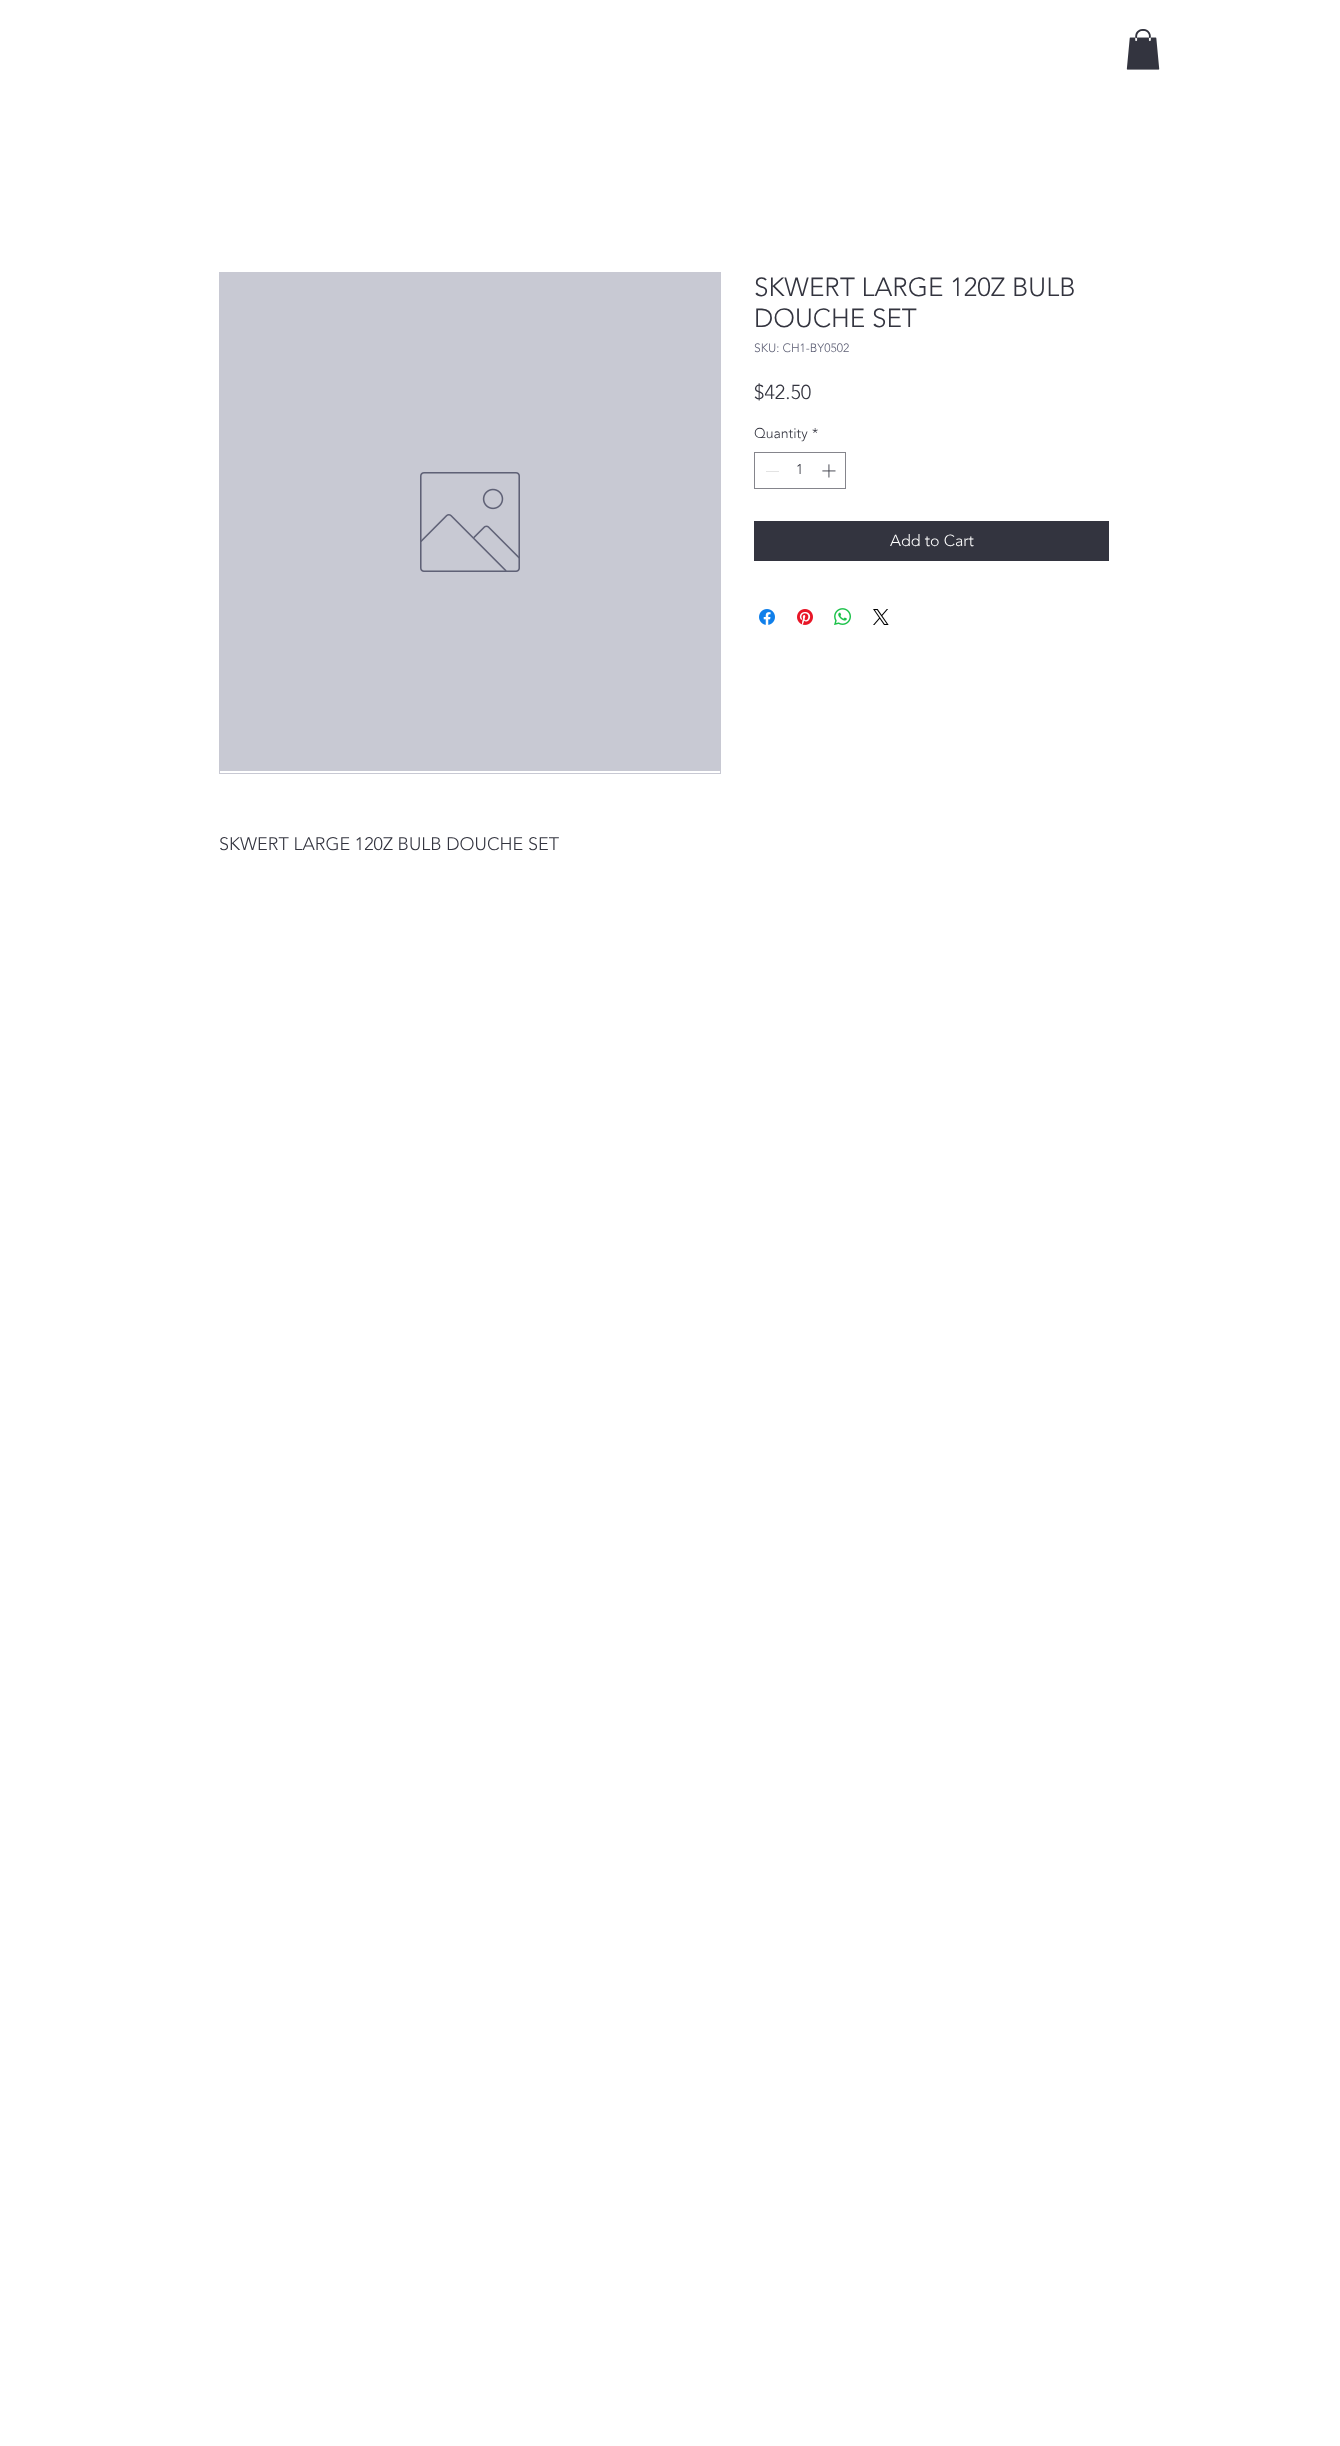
<svg xmlns="http://www.w3.org/2000/svg" width="1340" height="2446">
<rect width="100%" height="100%" fill="#fff"/>
<image x="1126" y="29" width="34" height="41" href="media/1.png"/>
<text x="754" y="296" style="font-family:'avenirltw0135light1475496';font-size:26px;font-weight:300;fill:#33343f">SKWERT LARGE 120Z BULB</text>
<text x="754" y="327" style="font-family:'avenirltw0135light1475496';font-size:26px;font-weight:300;fill:#33343f">DOUCHE SET</text>
<text x="754" y="352" style="font-family:'avenirltw0135light1475496';font-size:12px;font-weight:300;fill:#5f6176">SKU: CH1-BY0502</text>
<text x="754" y="399" style="font-family:'avenirltw0135light1475496';font-size:20px;font-weight:300;fill:#33343f">$42.50</text>
<text x="754" y="438" style="font-family:'avenirltw0135light1475496';font-size:14px;font-weight:300;fill:#33343f">Quantity</text>
<text x="812" y="438" style="font-family:'avenirltw0135light1475496';font-size:14px;font-weight:300;fill:#33343f">*</text>
<rect x="754.5" y="452.5" width="91" height="36" fill="none" stroke="#85858c"/>
<rect x="766" y="471" width="13" height="1" fill="#e3e3e3"/>
<text x="796" y="474" style="font-family:'avenirltw0135light1475496';font-size:14px;font-weight:300;fill:#33343f">1</text>
<image x="822" y="464" width="14" height="14" href="media/2.png"/>
<rect x="754" y="521" width="355" height="40" fill="#33343f"/>
<text x="890" y="546" style="font-family:'avenirltw0135light1475496';font-size:16px;font-weight:300;fill:#fff">Add to Cart</text>
<image x="759" y="609" width="16" height="16" href="media/3.png"/>
<image x="797" y="609" width="16" height="16" href="media/4.png"/>
<image x="834" y="608" width="17" height="17" href="media/5.png"/>
<image x="873" y="609" width="16" height="16" href="media/6.png"/>
<rect x="219.5" y="272.5" width="501" height="501" fill="none" stroke="#c8c9d3"/>
<rect x="220" y="273" width="500" height="498" fill="#c8c9d3"/>
<image x="420" y="472" width="100" height="100" href="media/7.png"/>
<text x="219" y="850" style="font-family:'avenirltw0135light1475496';font-size:18px;font-weight:300;fill:#33343f">SKWERT LARGE 120Z BULB DOUCHE SET</text>
</svg>
